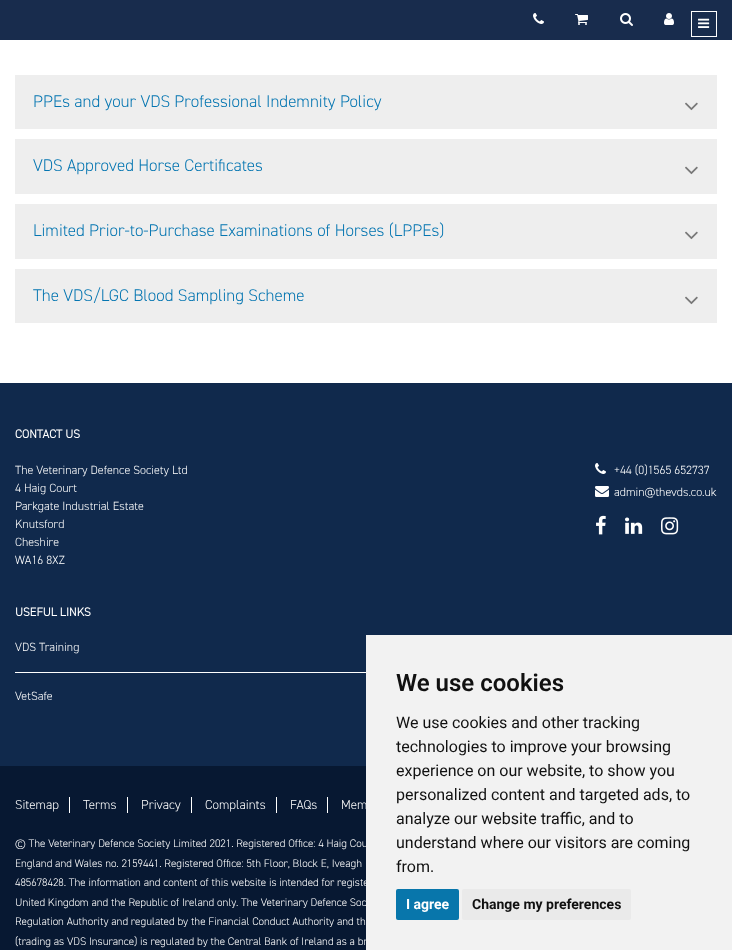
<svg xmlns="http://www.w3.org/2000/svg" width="732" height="950">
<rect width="100%" height="100%" fill="#fff"/>
<rect width="732" height="40" fill="#182c4d"/>
<image x="533" y="13" width="11" height="11" href="media/1.png"/>
<image x="575" y="14" width="13" height="11" href="media/2.png"/>
<image x="620" y="13" width="13" height="13" href="media/3.png"/>
<image x="664" y="13" width="10" height="12" href="media/4.png"/>
<rect x="691.5" y="11.5" width="25" height="25" fill="none" stroke="#fff"/>
<image x="698" y="18" width="12" height="10" href="media/5.png"/>
<rect x="15" y="75" width="702" height="54" fill="#eee"/>
<text x="33" y="107" style="font-family:'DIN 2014';font-size:17px;font-weight:300;fill:#0475b1">PPEs and your VDS Professional Indemnity Policy</text>
<image x="685" y="102" width="13" height="9" href="media/6.png"/>
<rect x="15" y="139" width="702" height="55" fill="#eee"/>
<text x="33" y="171" style="font-family:'DIN 2014';font-size:17px;font-weight:300;fill:#0475b1">VDS Approved Horse Certificates</text>
<image x="685" y="166" width="13" height="9" href="media/6.png"/>
<rect x="15" y="204" width="702" height="55" fill="#eee"/>
<text x="33" y="236" style="font-family:'DIN 2014';font-size:17px;font-weight:300;fill:#0475b1">Limited Prior-to-Purchase Examinations of Horses (LPPEs)</text>
<image x="685" y="231" width="13" height="9" href="media/6.png"/>
<rect x="15" y="269" width="702" height="54" fill="#eee"/>
<text x="33" y="301" style="font-family:'DIN 2014';font-size:17px;font-weight:300;fill:#0475b1">The VDS/LGC Blood Sampling Scheme</text>
<image x="685" y="296" width="13" height="9" href="media/6.png"/>
<rect y="383" width="732" height="383" fill="#10294c"/>
<text x="15" y="438" style="font-family:'DIN 2014';font-size:12px;font-weight:bold;fill:#fff">CONTACT US</text>
<text x="15" y="474" style="font-family:'DIN 2014';font-size:12px;font-weight:300;fill:#fff">The Veterinary Defence Society Ltd</text>
<text x="15" y="492" style="font-family:'DIN 2014';font-size:12px;font-weight:300;fill:#fff">4 Haig Court</text>
<text x="15" y="510" style="font-family:'DIN 2014';font-size:12px;font-weight:300;fill:#fff">Parkgate Industrial Estate</text>
<text x="15" y="528" style="font-family:'DIN 2014';font-size:12px;font-weight:300;fill:#fff">Knutsford</text>
<text x="15" y="546" style="font-family:'DIN 2014';font-size:12px;font-weight:300;fill:#fff">Cheshire</text>
<text x="15" y="564" style="font-family:'DIN 2014';font-size:12px;font-weight:300;fill:#fff">WA16 8XZ</text>
<image x="595" y="463" width="11" height="11" href="media/7.png"/>
<text x="614" y="474" style="font-family:'DIN 2014';font-size:12px;font-weight:300;fill:#fff">+44 (0)1565 652737</text>
<image x="595" y="486" width="14" height="11" href="media/8.png"/>
<text x="614" y="496" style="font-family:'DIN 2014';font-size:12px;font-weight:300;fill:#fff">admin@thevds.co.uk</text>
<image x="596" y="515" width="10" height="20" href="media/9.png"/>
<image x="625" y="517" width="18" height="17" href="media/10.png"/>
<image x="661" y="517" width="18" height="18" href="media/11.png"/>
<text x="15" y="616" style="font-family:'DIN 2014';font-size:12px;font-weight:bold;fill:#fff">USEFUL LINKS</text>
<text x="15" y="651" style="font-family:'DIN 2014';font-size:12px;font-weight:300;fill:#fff">VDS Training</text>
<rect x="15" y="672" width="351" height="1" fill="#fff"/>
<text x="15" y="700" style="font-family:'DIN 2014';font-size:12px;font-weight:300;fill:#fff">VetSafe</text>
<rect y="766" width="366" height="184" fill="#071832"/>
<text x="15" y="809" style="font-family:'DIN 2014';font-size:13px;font-weight:300;fill:#fff">Sitemap</text>
<rect x="69" y="797" width="1" height="16" fill="#fff"/>
<text x="83" y="809" style="font-family:'DIN 2014';font-size:13px;font-weight:300;fill:#fff">Terms</text>
<rect x="127" y="797" width="1" height="16" fill="#fff"/>
<text x="141" y="809" style="font-family:'DIN 2014';font-size:13px;font-weight:300;fill:#fff">Privacy</text>
<rect x="191" y="797" width="1" height="16" fill="#fff"/>
<text x="205" y="809" style="font-family:'DIN 2014';font-size:13px;font-weight:300;fill:#fff">Complaints</text>
<rect x="276" y="797" width="1" height="16" fill="#fff"/>
<text x="290" y="809" style="font-family:'DIN 2014';font-size:13px;font-weight:300;fill:#fff">FAQs</text>
<rect x="327" y="797" width="1" height="16" fill="#fff"/>
<text x="341" y="809" style="font-family:'DIN 2014';font-size:13px;font-weight:300;fill:#fff">Mem</text>
<text x="15" y="847" style="font-family:'DIN 2014';font-size:11.05px;font-weight:300;fill:#fff">© The Veterinary Defence Society Limited 2021. Registered Office: 4 Haig Cou</text>
<text x="15" y="867" style="font-family:'DIN 2014';font-size:11.05px;font-weight:300;fill:#fff">England and Wales no. 2159441. Registered Office: 5th Floor, Block E, Iveagh</text>
<text x="15" y="886" style="font-family:'DIN 2014';font-size:11.05px;font-weight:300;fill:#fff">485678428. The information and content of this website is intended for registe</text>
<text x="15" y="906" style="font-family:'DIN 2014';font-size:11.05px;font-weight:300;fill:#fff">United Kingdom and the Republic of Ireland only. The Veterinary Defence Soc</text>
<text x="15" y="925" style="font-family:'DIN 2014';font-size:11.05px;font-weight:300;fill:#fff">Regulation Authority and regulated by the Financial Conduct Authority and th</text>
<text x="15" y="945" style="font-family:'DIN 2014';font-size:11.05px;font-weight:300;fill:#fff">(trading as VDS Insurance) is regulated by the Central Bank of Ireland as a br</text>
<rect x="366" y="635" width="366" height="315" fill="#f2f2f2"/>
<text x="396" y="691" style="font-family:Roboto;font-size:24px;font-weight:600;fill:#111">We use cookies</text>
<text x="396" y="728" style="font-family:Roboto;font-size:16px;fill:#111">We use cookies and other tracking</text>
<text x="396" y="752" style="font-family:Roboto;font-size:16px;fill:#111">technologies to improve your browsing</text>
<text x="396" y="776" style="font-family:Roboto;font-size:16px;fill:#111">experience on our website, to show you</text>
<text x="396" y="800" style="font-family:Roboto;font-size:16px;fill:#111">personalized content and targeted ads, to</text>
<text x="396" y="824" style="font-family:Roboto;font-size:16px;fill:#111">analyze our website traffic, and to</text>
<text x="396" y="848" style="font-family:Roboto;font-size:16px;fill:#111">understand where our visitors are coming</text>
<text x="396" y="872" style="font-family:Roboto;font-size:16px;fill:#111">from.</text>
<rect x="396" y="889" width="63" height="31" rx="2" fill="#0876ab"/>
<text x="406" y="909" style="font-family:Roboto;font-size:14px;font-weight:bold;fill:#fff">I agree</text>
<rect x="462" y="889" width="169" height="31" rx="2" fill="#eaeaea"/>
<text x="472" y="909" style="font-family:Roboto;font-size:14px;font-weight:bold;fill:#111">Change my preferences</text>
</svg>
